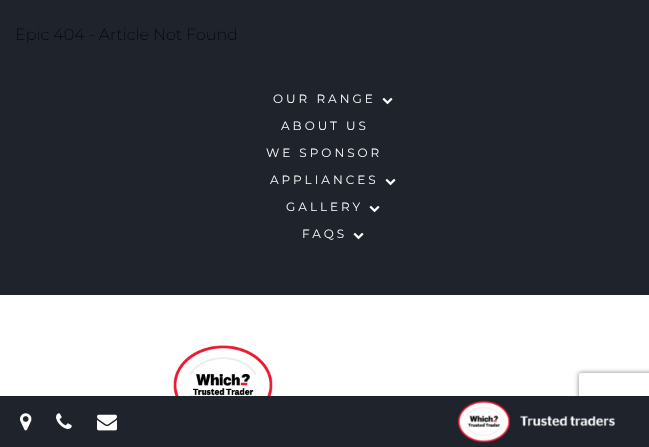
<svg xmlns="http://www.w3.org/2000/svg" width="649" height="447">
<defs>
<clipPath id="clip1"><path d="M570 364h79v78h-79zm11 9h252c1 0 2 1 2 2v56c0 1-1 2-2 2h-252c-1 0-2-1-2-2v-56c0-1 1-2 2-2z" clip-rule="evenodd"/></clipPath>
</defs>
<rect width="100%" height="100%" fill="#1f232c"/>
<text x="15" y="40" style="font-family:Montserrat;font-size:16px;font-weight:200;fill:#000">Epic 404 - Article Not Found</text>
<text x="273" y="103" style="font-family:Montserrat;font-size:12px;letter-spacing:3px;fill:#fff">OUR RANGE</text>
<image x="382" y="97" width="11" height="8" href="media/1.png"/>
<text x="281" y="130" style="font-family:Montserrat;font-size:12px;letter-spacing:3px;fill:#fff">ABOUT US</text>
<text x="266" y="157" style="font-family:Montserrat;font-size:12px;letter-spacing:3px;fill:#fff">WE SPONSOR</text>
<text x="270" y="184" style="font-family:Montserrat;font-size:12px;letter-spacing:3px;fill:#fff">APPLIANCES</text>
<image x="385" y="178" width="11" height="8" href="media/1.png"/>
<text x="286" y="211" style="font-family:Montserrat;font-size:12px;letter-spacing:3px;fill:#fff">GALLERY</text>
<image x="369" y="205" width="11" height="8" href="media/1.png"/>
<text x="302" y="238" style="font-family:Montserrat;font-size:12px;letter-spacing:3px;fill:#fff">FAQS</text>
<image x="353" y="232" width="11" height="8" href="media/1.png"/>
<rect y="295" width="649" height="101" fill="#fff"/>
<image x="173" y="345" width="263" height="51" href="media/2.png"/>
<g clip-path="url(#clip1)">
<rect x="579" y="373" width="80" height="60" rx="2" fill="#808080" filter="blur(2.5px)"/>
</g>
<rect x="574" y="396" width="75" height="42" fill="#1f232c"/>
<image x="20" y="413" width="12" height="18" href="media/3.png"/>
<image x="56" y="413" width="16" height="16" href="media/4.png"/>
<image x="97" y="414" width="20" height="17" href="media/5.png"/>
<image x="457" y="400" width="159" height="43" href="media/6.png"/>
</svg>
